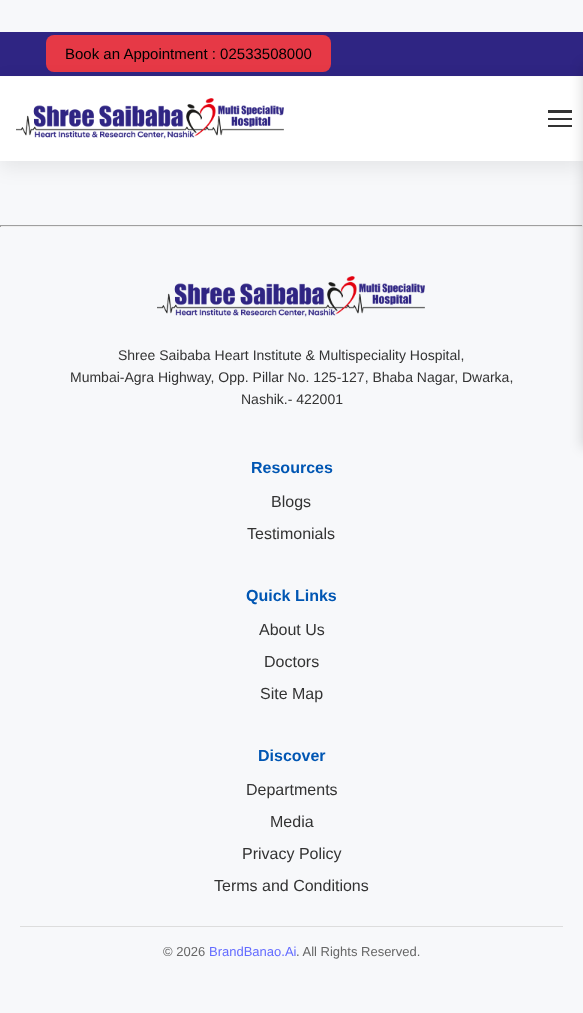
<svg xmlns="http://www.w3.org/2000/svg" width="583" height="1013">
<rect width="100%" height="100%" fill="#f7f8fa"/>
<rect y="32" width="583" height="44" fill="#2f2583"/>
<rect y="76" width="583" height="1" fill="#fff"/>
<rect x="46" y="35" width="285" height="37" rx="8" fill="#e63946"/>
<rect y="83" width="583" height="84" fill="#00000014" filter="blur(10px)"/>
<rect y="77" width="583" height="84" fill="#fff"/>
<image x="16" y="98" width="268" height="41" href="media/1.png"/>
<rect y="225" width="583" height="1" fill="#9f9f9f"/>
<rect x="582" y="225" width="1" height="2" fill="#eee"/>
<rect y="226" width="583" height="1" fill="#eee"/>
<rect x="581" y="64" width="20" height="384" fill="#0000001f" filter="blur(6px)"/>
<rect x="548" y="110" width="24" height="3" fill="#333"/>
<rect x="548" y="118" width="24" height="2" fill="#333"/>
<rect x="548" y="125" width="24" height="2" fill="#333"/>
<text x="65" y="59" style="font-family:Liberation Sans;font-size:15px;fill:#000">Book an Appointment : 02533508000</text>
<rect y="225" width="1" height="2" fill="#9f9f9f"/>
<image x="157" y="276" width="268" height="41" href="media/2.png"/>
<text x="118" y="360" style="font-family:Liberation Sans;font-size:14px;fill:#333">Shree Saibaba Heart Institute &amp; Multispeciality Hospital,</text>
<text x="70" y="382" style="font-family:Liberation Sans;font-size:14px;fill:#333">Mumbai-Agra Highway, Opp. Pillar No. 125-127, Bhaba Nagar, Dwarka,</text>
<text x="241" y="404" style="font-family:Liberation Sans;font-size:14px;fill:#333">Nashik.- 422001</text>
<text x="251" y="473" style="font-family:Liberation Sans;font-size:16px;font-weight:bold;fill:#0056b3">Resources</text>
<text x="271" y="507" style="font-family:Liberation Sans;font-size:16px;fill:#333">Blogs</text>
<text x="247" y="539" style="font-family:Liberation Sans;font-size:16px;fill:#333">Testimonials</text>
<text x="246" y="601" style="font-family:Liberation Sans;font-size:16px;font-weight:bold;fill:#0056b3">Quick Links</text>
<text x="259" y="635" style="font-family:Liberation Sans;font-size:16px;fill:#333">About Us</text>
<text x="264" y="667" style="font-family:Liberation Sans;font-size:16px;fill:#333">Doctors</text>
<text x="260" y="699" style="font-family:Liberation Sans;font-size:16px;fill:#333">Site Map</text>
<text x="258" y="761" style="font-family:Liberation Sans;font-size:16px;font-weight:bold;fill:#0056b3">Discover</text>
<text x="246" y="795" style="font-family:Liberation Sans;font-size:16px;fill:#333">Departments</text>
<text x="270" y="827" style="font-family:Liberation Sans;font-size:16px;fill:#333">Media</text>
<text x="242" y="859" style="font-family:Liberation Sans;font-size:16px;fill:#333">Privacy Policy</text>
<text x="214" y="891" style="font-family:Liberation Sans;font-size:16px;fill:#333">Terms and Conditions</text>
<rect x="20" y="926" width="543" height="1" fill="#ddd"/>
<text x="163" y="956" style="font-family:Liberation Sans;font-size:13px;fill:#666">© 2026</text>
<text x="209" y="956" style="font-family:Liberation Sans;font-size:13px;fill:#646cff">BrandBanao.Ai</text>
<text x="296" y="956" style="font-family:Liberation Sans;font-size:13px;fill:#666">. All Rights Reserved.</text>
</svg>
